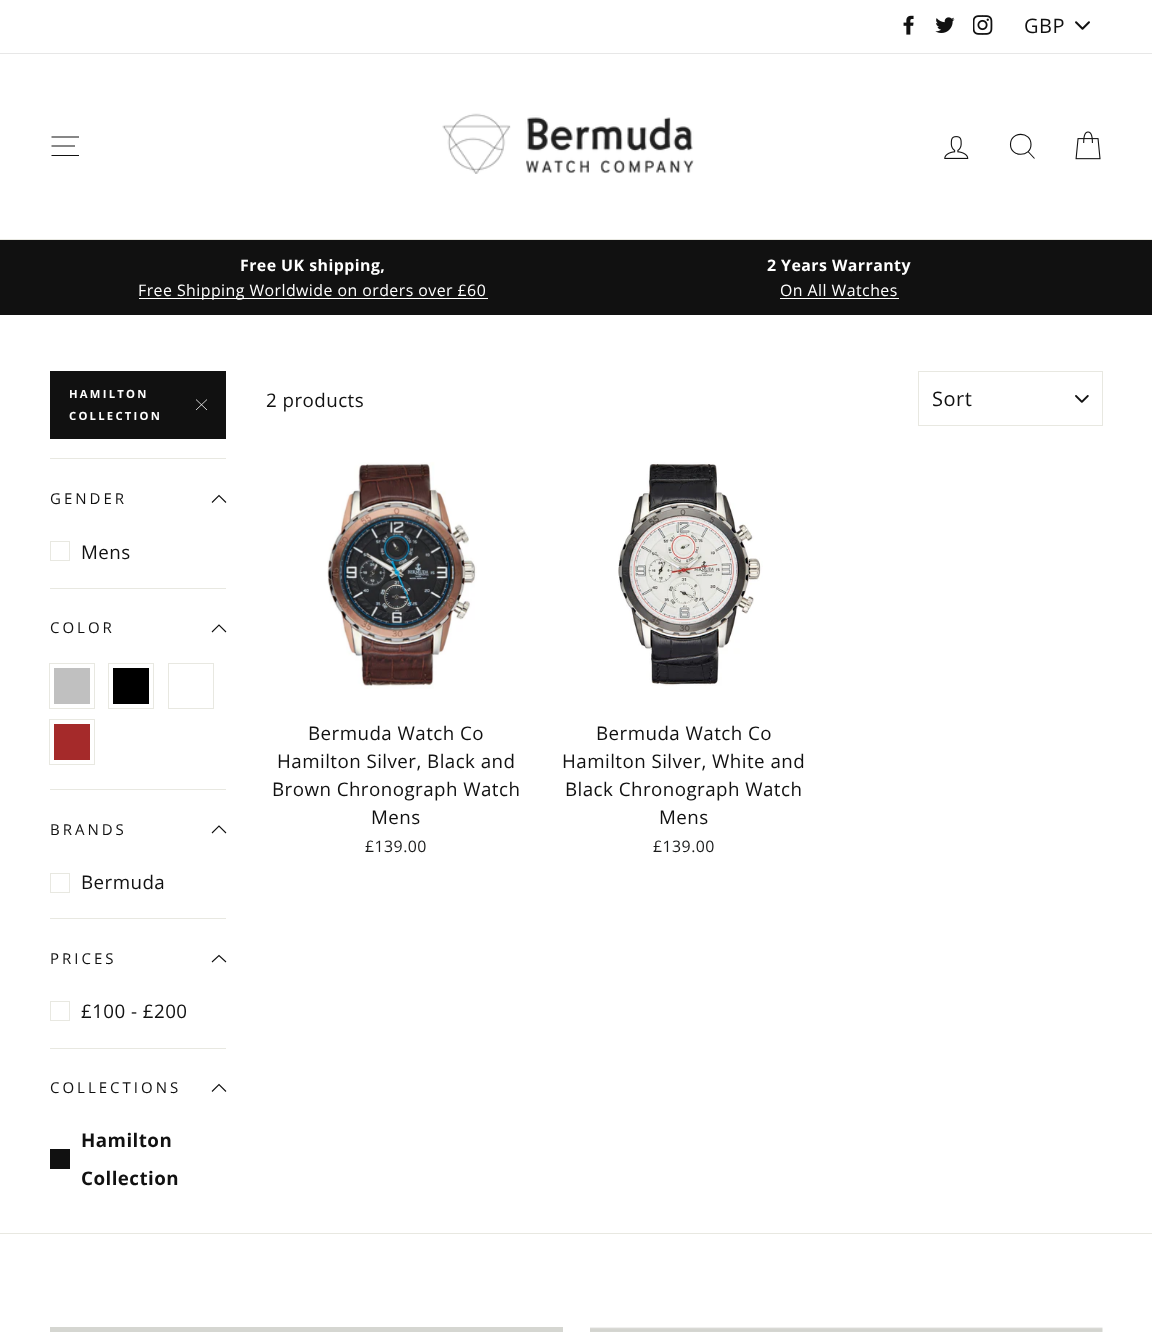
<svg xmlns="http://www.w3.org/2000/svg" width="1152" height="1332">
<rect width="100%" height="100%" fill="#fff"/>
<image x="903" y="15" width="11" height="20" href="media/1.png"/>
<image x="935" y="17" width="20" height="16" href="media/2.png"/>
<image x="973" y="15" width="20" height="20" href="media/3.png"/>
<image x="1075" y="21" width="15" height="9" href="media/4.png"/>
<text x="1024" y="33" style="font-family:Open Sans;font-size:20px;letter-spacing:0.5px;fill:#111">GBP</text>
<rect y="53" width="1152" height="1" fill="#e7e7e7"/>
<rect y="239" width="1152" height="1" fill="#e8e8e1"/>
<path d="M51.5 137h27.5m-27.5 9h23.5m-23.5 9.5h27.5" fill="none" stroke="#111" stroke-width="1.1"/>
<image x="442" y="113" width="252" height="61" href="media/5.png"/>
<image x="944" y="136" width="25" height="23" href="media/6.png"/>
<path d="M1031 144.5c0 13-20.5 13-20.5 0c0-13.5 20.5-13.5 20.5 0zm3.5 14l-6.5-7" fill="none" stroke="#111" stroke-width="1.1"/>
<image x="1075" y="131" width="26" height="29" href="media/7.png"/>
<rect y="240" width="1152" height="75" fill="#111"/>
<text x="240" y="271" style="font-family:Open Sans;font-size:15.9px;font-weight:bold;letter-spacing:0.45px;fill:#fff">Free UK shipping,</text>
<rect x="139" y="298" width="349" height="1" fill="#fff"/>
<text x="138" y="296" style="font-family:Open Sans;font-size:15.9px;letter-spacing:0.45px;fill:#fff">Free Shipping Worldwide on orders over £60</text>
<text x="767" y="271" style="font-family:Open Sans;font-size:15.9px;font-weight:bold;letter-spacing:0.45px;fill:#fff">2 Years Warranty</text>
<text x="780" y="296" style="font-family:Open Sans;font-size:15.9px;letter-spacing:0.45px;fill:#fff">On All Watches</text>
<rect x="780" y="298" width="119" height="1" fill="#fff"/>
<rect x="50" y="371" width="176" height="68" fill="#111"/>
<text x="69" y="398" style="font-family:Open Sans;font-size:11.25px;font-weight:bold;letter-spacing:2.25px;fill:#fff">HAMILTON</text>
<text x="69" y="420" style="font-family:Open Sans;font-size:11.25px;font-weight:bold;letter-spacing:2.25px;fill:#fff">COLLECTION</text>
<path d="M196 399.5l11 10.5m0-10.5l-11 10.5" fill="none" stroke="#fff" stroke-width="0.8"/>
<rect x="50" y="458" width="176" height="1" fill="#e8e8e1"/>
<text x="50" y="504" style="font-family:Open Sans;font-size:15px;letter-spacing:3px;fill:#111">GENDER</text>
<path d="M212 502.5l7-7l7 7" fill="none" stroke="#111" stroke-width="1.1"/>
<rect x="50.5" y="541.5" width="19" height="19" fill="none" stroke="#e8e8e1"/>
<text x="81" y="559" style="font-family:Open Sans;font-size:18.75px;letter-spacing:0.45px;fill:#111">Mens</text>
<rect x="50" y="588" width="176" height="1" fill="#e8e8e1"/>
<text x="50" y="633" style="font-family:Open Sans;font-size:15px;letter-spacing:3px;fill:#111">COLOR</text>
<path d="M212 632l7-7l7 7" fill="none" stroke="#111" stroke-width="1.1"/>
<rect x="49.5" y="663.5" width="45" height="45" fill="none" stroke="#e8e8e1"/>
<rect x="54" y="668" width="36" height="36" fill="#c0c0c0"/>
<rect x="108.5" y="663.5" width="45" height="45" fill="none" stroke="#e8e8e1"/>
<rect x="113" y="668" width="36" height="36" fill="#000"/>
<rect x="168.5" y="663.5" width="45" height="45" fill="none" stroke="#e8e8e1"/>
<rect x="49.5" y="719.5" width="45" height="45" fill="none" stroke="#e8e8e1"/>
<rect x="54" y="724" width="36" height="36" fill="#a52a2a"/>
<rect x="50" y="789" width="176" height="1" fill="#e8e8e1"/>
<text x="50" y="835" style="font-family:Open Sans;font-size:15px;letter-spacing:3px;fill:#111">BRANDS</text>
<path d="M212 833l7-7l7 7" fill="none" stroke="#111" stroke-width="1.1"/>
<rect x="50.5" y="873.5" width="19" height="19" fill="none" stroke="#e8e8e1"/>
<text x="81" y="889" style="font-family:Open Sans;font-size:18.75px;letter-spacing:0.45px;fill:#111">Bermuda</text>
<rect x="50" y="918" width="176" height="1" fill="#e8e8e1"/>
<text x="50" y="964" style="font-family:Open Sans;font-size:15px;letter-spacing:3px;fill:#111">PRICES</text>
<path d="M212 962l7-6.5l7 6.5" fill="none" stroke="#111" stroke-width="1.1"/>
<rect x="50.5" y="1001.5" width="19" height="19" fill="none" stroke="#e8e8e1"/>
<text x="81" y="1018" style="font-family:Open Sans;font-size:18.75px;letter-spacing:0.45px;fill:#111">£100 - £200</text>
<rect x="50" y="1048" width="176" height="1" fill="#e8e8e1"/>
<text x="50" y="1093" style="font-family:Open Sans;font-size:15px;letter-spacing:3px;fill:#111">COLLECTIONS</text>
<path d="M212 1091.5l7-7l7 7" fill="none" stroke="#111" stroke-width="1.1"/>
<text x="81" y="1147" style="font-family:Open Sans;font-size:18.75px;font-weight:bold;letter-spacing:0.45px;fill:#111">Hamilton</text>
<rect x="50" y="1149" width="20" height="20" fill="#111"/>
<text x="81" y="1185" style="font-family:Open Sans;font-size:18.75px;font-weight:bold;letter-spacing:0.45px;fill:#111">Collection</text>
<text x="266" y="407" style="font-family:Open Sans;font-size:18.75px;letter-spacing:0.45px;fill:#111">2 products</text>
<image x="1075" y="395" width="14" height="8" href="media/8.png"/>
<rect x="918.5" y="371.5" width="184" height="54" fill="none" stroke="#e8e8e1"/>
<text x="932" y="406" style="font-family:Open Sans;font-size:20px;letter-spacing:0.5px;fill:#111">Sort</text>
<image x="327" y="462" width="150" height="227" href="media/9.png"/>
<text x="308" y="740" style="font-family:Open Sans;font-size:18.75px;letter-spacing:0.45px;fill:#111">Bermuda Watch Co</text>
<text x="277" y="768" style="font-family:Open Sans;font-size:18.75px;letter-spacing:0.45px;fill:#111">Hamilton Silver, Black and</text>
<text x="272" y="796" style="font-family:Open Sans;font-size:18.75px;letter-spacing:0.45px;fill:#111">Brown Chronograph Watch</text>
<text x="371" y="824" style="font-family:Open Sans;font-size:18.75px;letter-spacing:0.45px;fill:#111">Mens</text>
<text x="365" y="852" style="font-family:Open Sans;font-size:15.9px;letter-spacing:0.45px;fill:#1c1d1d">£139.00</text>
<image x="618" y="462" width="145" height="224" href="media/10.png"/>
<text x="596" y="740" style="font-family:Open Sans;font-size:18.75px;letter-spacing:0.45px;fill:#111">Bermuda Watch Co</text>
<text x="562" y="768" style="font-family:Open Sans;font-size:18.75px;letter-spacing:0.45px;fill:#111">Hamilton Silver, White and</text>
<text x="565" y="796" style="font-family:Open Sans;font-size:18.75px;letter-spacing:0.45px;fill:#111">Black Chronograph Watch</text>
<text x="659" y="824" style="font-family:Open Sans;font-size:18.75px;letter-spacing:0.45px;fill:#111">Mens</text>
<text x="653" y="852" style="font-family:Open Sans;font-size:15.9px;letter-spacing:0.45px;fill:#1c1d1d">£139.00</text>
<rect y="1233" width="1152" height="1" fill="#e8e8e1"/>
<rect x="50" y="1327" width="513" height="5" fill="#d5d6d1"/>
<image x="590" y="1327" width="513" height="5" href="media/11.png"/>
</svg>
